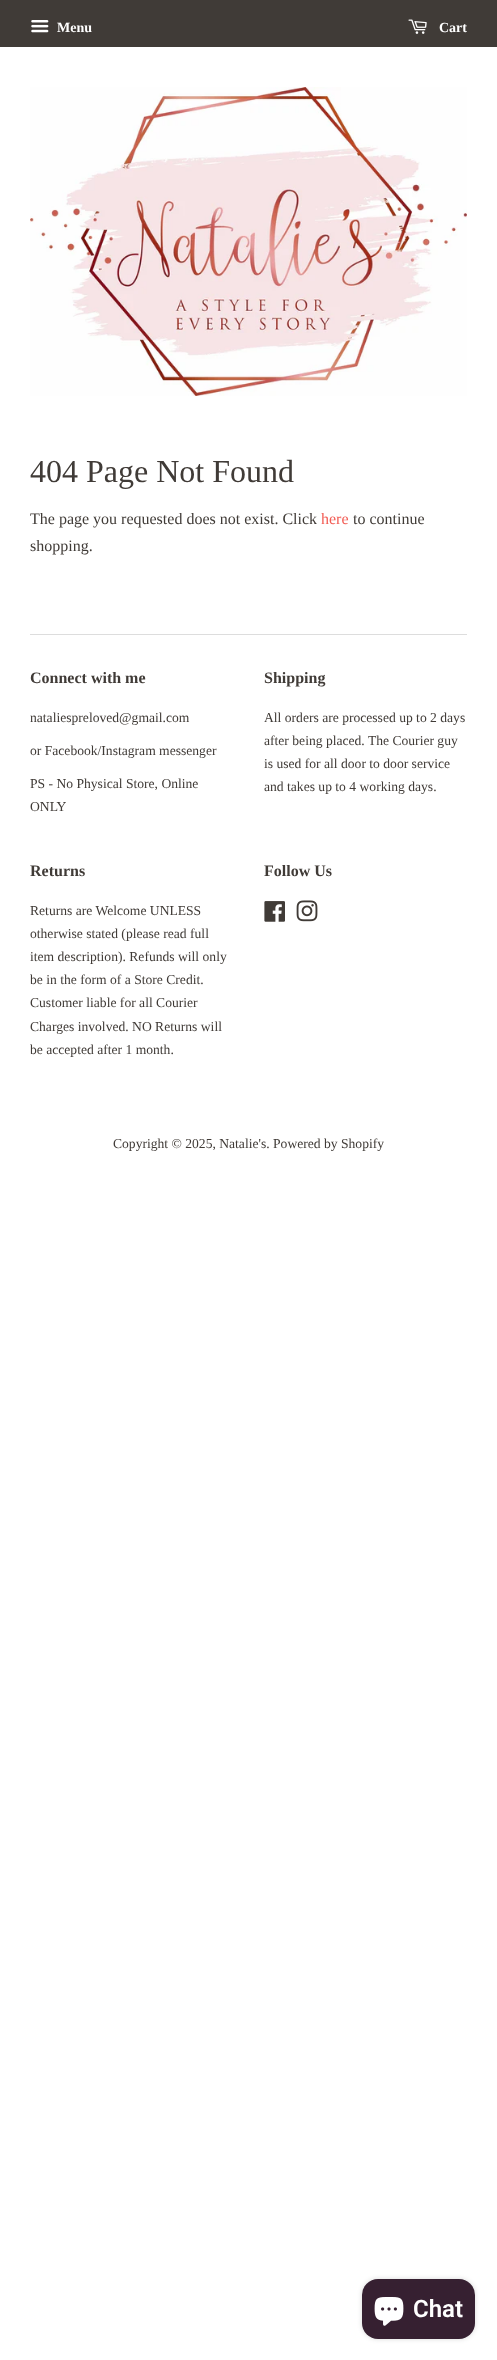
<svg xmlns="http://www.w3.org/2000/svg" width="497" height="2360">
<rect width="100%" height="100%" fill="#fff"/>
<rect width="497" height="47" fill="#403b37"/>
<image x="31" y="20" width="18" height="13" href="media/1.png"/>
<text x="57" y="32" style="font-family:Liberation Serif;font-size:14px;font-weight:bold;fill:#fff">Menu</text>
<image x="408" y="19" width="19" height="15" href="media/2.png"/>
<text x="439" y="32" style="font-family:Liberation Serif;font-size:14px;font-weight:bold;fill:#fff">Cart</text>
<image x="30" y="87" width="437" height="309" href="media/3.png"/>
<text x="30" y="482" style="font-family:Liberation Serif;font-size:32px;fill:#403b37">404 Page Not Found</text>
<text x="30" y="524" style="font-family:Liberation Serif;font-size:16px;fill:#403b37">The page you requested does not exist. Click</text>
<text x="321" y="524" style="font-family:Liberation Serif;font-size:16px;fill:#f25c54">here</text>
<text x="353" y="524" style="font-family:Liberation Serif;font-size:16px;fill:#403b37">to continue</text>
<text x="30" y="551" style="font-family:Liberation Serif;font-size:16px;fill:#403b37">shopping.</text>
<rect x="30" y="634" width="437" height="1" fill="#ddd"/>
<text x="30" y="683" style="font-family:Liberation Serif;font-size:16px;font-weight:bold;fill:#403b37">Connect with me</text>
<text x="30" y="722" style="font-family:Liberation Serif;font-size:13.6px;fill:#403b37">nataliespreloved@gmail.com</text>
<text x="30" y="755" style="font-family:Liberation Serif;font-size:13.6px;fill:#403b37">or Facebook/Instagram messenger</text>
<text x="30" y="788" style="font-family:Liberation Serif;font-size:13.6px;fill:#403b37">PS - No Physical Store, Online</text>
<text x="30" y="811" style="font-family:Liberation Serif;font-size:13.6px;fill:#403b37">ONLY</text>
<text x="264" y="683" style="font-family:Liberation Serif;font-size:16px;font-weight:bold;fill:#403b37">Shipping</text>
<text x="264" y="722" style="font-family:Liberation Serif;font-size:13.6px;fill:#403b37">All orders are processed up to 2 days</text>
<text x="264" y="745" style="font-family:Liberation Serif;font-size:13.6px;fill:#403b37">after being placed. The Courier guy</text>
<text x="264" y="768" style="font-family:Liberation Serif;font-size:13.6px;fill:#403b37">is used for all door to door service</text>
<text x="264" y="791" style="font-family:Liberation Serif;font-size:13.6px;fill:#403b37">and takes up to 4 working days.</text>
<text x="30" y="876" style="font-family:Liberation Serif;font-size:16px;font-weight:bold;fill:#403b37">Returns</text>
<text x="30" y="915" style="font-family:Liberation Serif;font-size:13.6px;fill:#403b37">Returns are Welcome UNLESS</text>
<text x="30" y="938" style="font-family:Liberation Serif;font-size:13.6px;fill:#403b37">otherwise stated (please read full</text>
<text x="30" y="961" style="font-family:Liberation Serif;font-size:13.6px;fill:#403b37">item description). Refunds will only</text>
<text x="30" y="984" style="font-family:Liberation Serif;font-size:13.6px;fill:#403b37">be in the form of a Store Credit.</text>
<text x="30" y="1007" style="font-family:Liberation Serif;font-size:13.6px;fill:#403b37">Customer liable for all Courier</text>
<text x="30" y="1031" style="font-family:Liberation Serif;font-size:13.6px;fill:#403b37">Charges involved. NO Returns will</text>
<text x="30" y="1054" style="font-family:Liberation Serif;font-size:13.6px;fill:#403b37">be accepted after 1 month.</text>
<text x="264" y="876" style="font-family:Liberation Serif;font-size:16px;font-weight:bold;fill:#403b37">Follow Us</text>
<image x="264" y="901" width="21" height="21" href="media/4.png"/>
<image x="296" y="900" width="22" height="22" href="media/5.png"/>
<text x="113" y="1148" style="font-family:Liberation Serif;font-size:13.6px;fill:#403b37">Copyright © 2025, Natalie's. Powered by Shopify</text>
<rect x="362" y="2279" width="113" height="60" rx="16" fill="#00000026" filter="blur(2.5px)"/>
<rect x="362" y="2279" width="113" height="60" rx="16" fill="#362031"/>
<image x="374" y="2297" width="30" height="29" href="media/6.png"/>
<text x="413" y="2317" style="font-family:Roboto;font-size:24px;font-weight:600;fill:#fff">Chat</text>
</svg>
